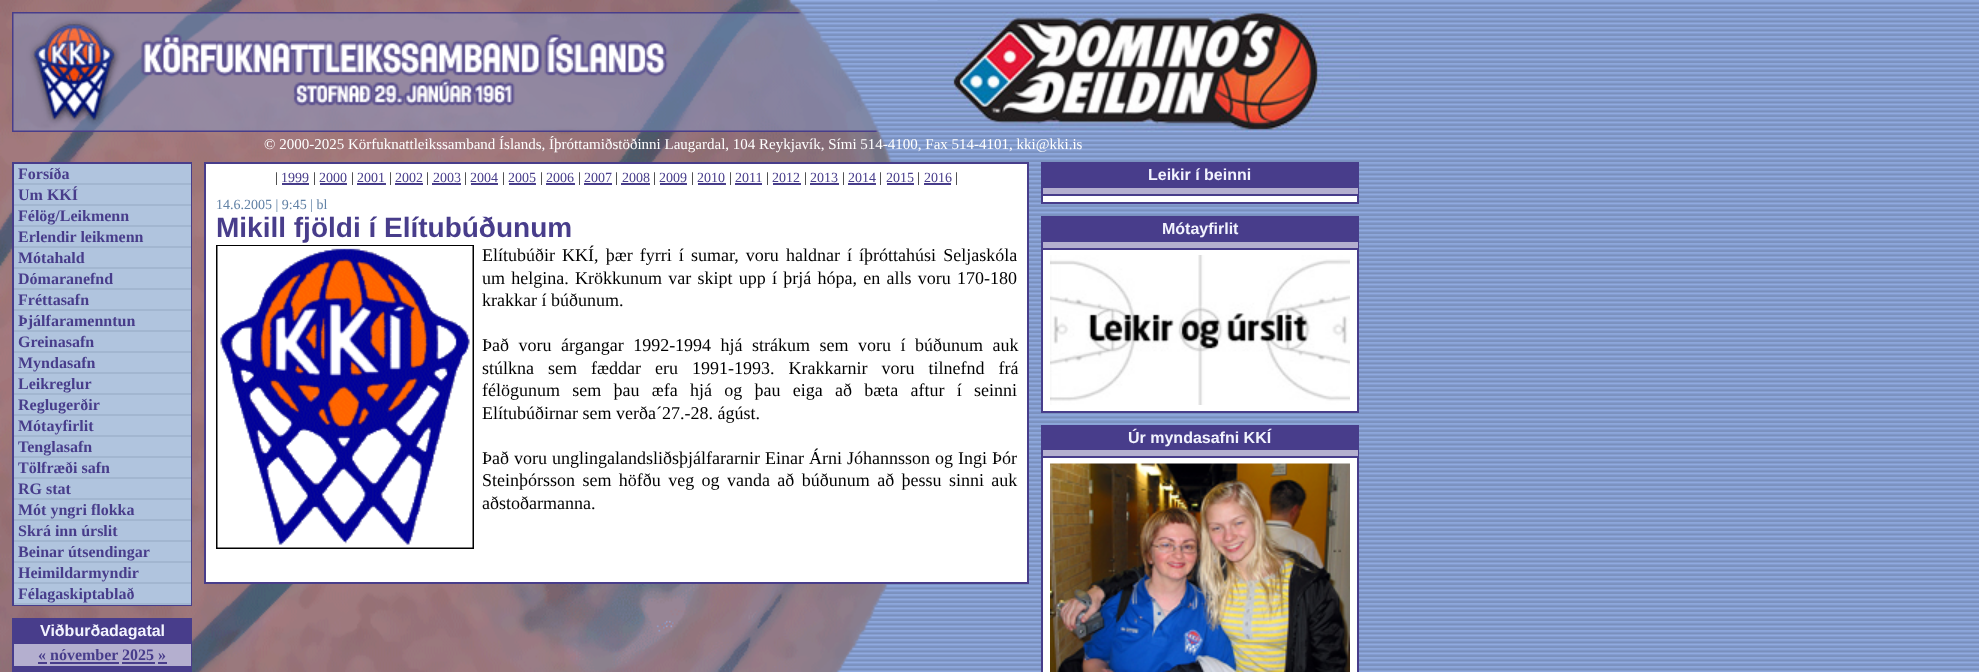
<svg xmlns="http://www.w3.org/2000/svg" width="1979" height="672">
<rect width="100%" height="100%" fill="#fff"/>
<image x="937" y="0" width="1042" height="672" href="media/1.png"/>
<image x="0" y="0" width="938" height="672" href="media/2.png"/>
<image x="880" y="12" width="50" height="120" href="media/3.png"/>
<image x="12" y="12" width="868" height="120" href="media/4.png"/>
<image x="930" y="12" width="429" height="120" href="media/5.png"/>
<text x="264" y="149" style="font-family:Liberation Serif;font-size:15px;fill:#fff">© 2000-2025 Körfuknattleikssamband Íslands, Íþróttamiðstöðinni Laugardal, 104 Reykjavík, Sími 514-4100, Fax 514-4101, kki@kki.is</text>
<rect x="13" y="163" width="178" height="442" fill="none" stroke="#483d8b" stroke-width="2"/>
<rect x="14" y="164" width="177" height="19" fill="#b0c4de"/>
<rect x="14" y="183" width="177" height="2" fill="#a2b6d0"/>
<text x="18" y="179" style="font-family:Liberation Serif;font-size:16px;font-weight:bold;fill:#483d8b">Forsíða</text>
<rect x="14" y="185" width="177" height="19" fill="#b0c4de"/>
<rect x="14" y="204" width="177" height="2" fill="#a2b6d0"/>
<text x="18" y="200" style="font-family:Liberation Serif;font-size:16px;font-weight:bold;fill:#483d8b">Um KKÍ</text>
<rect x="14" y="206" width="177" height="19" fill="#b0c4de"/>
<rect x="14" y="225" width="177" height="2" fill="#a2b6d0"/>
<text x="18" y="221" style="font-family:Liberation Serif;font-size:16px;font-weight:bold;fill:#483d8b">Félög/Leikmenn</text>
<rect x="14" y="227" width="177" height="19" fill="#b0c4de"/>
<rect x="14" y="246" width="177" height="2" fill="#a2b6d0"/>
<text x="18" y="242" style="font-family:Liberation Serif;font-size:16px;font-weight:bold;fill:#483d8b">Erlendir leikmenn</text>
<rect x="14" y="248" width="177" height="19" fill="#b0c4de"/>
<rect x="14" y="267" width="177" height="2" fill="#a2b6d0"/>
<text x="18" y="263" style="font-family:Liberation Serif;font-size:16px;font-weight:bold;fill:#483d8b">Mótahald</text>
<rect x="14" y="269" width="177" height="19" fill="#b0c4de"/>
<rect x="14" y="288" width="177" height="2" fill="#a2b6d0"/>
<text x="18" y="284" style="font-family:Liberation Serif;font-size:16px;font-weight:bold;fill:#483d8b">Dómaranefnd</text>
<rect x="14" y="290" width="177" height="19" fill="#b0c4de"/>
<rect x="14" y="309" width="177" height="2" fill="#a2b6d0"/>
<text x="18" y="305" style="font-family:Liberation Serif;font-size:16px;font-weight:bold;fill:#483d8b">Fréttasafn</text>
<rect x="14" y="311" width="177" height="19" fill="#b0c4de"/>
<rect x="14" y="330" width="177" height="2" fill="#a2b6d0"/>
<text x="18" y="326" style="font-family:Liberation Serif;font-size:16px;font-weight:bold;fill:#483d8b">Þjálfaramenntun</text>
<rect x="14" y="332" width="177" height="19" fill="#b0c4de"/>
<rect x="14" y="351" width="177" height="2" fill="#a2b6d0"/>
<text x="18" y="347" style="font-family:Liberation Serif;font-size:16px;font-weight:bold;fill:#483d8b">Greinasafn</text>
<rect x="14" y="353" width="177" height="19" fill="#b0c4de"/>
<rect x="14" y="372" width="177" height="2" fill="#a2b6d0"/>
<text x="18" y="368" style="font-family:Liberation Serif;font-size:16px;font-weight:bold;fill:#483d8b">Myndasafn</text>
<rect x="14" y="374" width="177" height="19" fill="#b0c4de"/>
<rect x="14" y="393" width="177" height="2" fill="#a2b6d0"/>
<text x="18" y="389" style="font-family:Liberation Serif;font-size:16px;font-weight:bold;fill:#483d8b">Leikreglur</text>
<rect x="14" y="395" width="177" height="19" fill="#b0c4de"/>
<rect x="14" y="414" width="177" height="2" fill="#a2b6d0"/>
<text x="18" y="410" style="font-family:Liberation Serif;font-size:16px;font-weight:bold;fill:#483d8b">Reglugerðir</text>
<rect x="14" y="416" width="177" height="19" fill="#b0c4de"/>
<rect x="14" y="435" width="177" height="2" fill="#a2b6d0"/>
<text x="18" y="431" style="font-family:Liberation Serif;font-size:16px;font-weight:bold;fill:#483d8b">Mótayfirlit</text>
<rect x="14" y="437" width="177" height="19" fill="#b0c4de"/>
<rect x="14" y="456" width="177" height="2" fill="#a2b6d0"/>
<text x="18" y="452" style="font-family:Liberation Serif;font-size:16px;font-weight:bold;fill:#483d8b">Tenglasafn</text>
<rect x="14" y="458" width="177" height="19" fill="#b0c4de"/>
<rect x="14" y="477" width="177" height="2" fill="#a2b6d0"/>
<text x="18" y="473" style="font-family:Liberation Serif;font-size:16px;font-weight:bold;fill:#483d8b">Tölfræði safn</text>
<rect x="14" y="479" width="177" height="19" fill="#b0c4de"/>
<rect x="14" y="498" width="177" height="2" fill="#a2b6d0"/>
<text x="18" y="494" style="font-family:Liberation Serif;font-size:16px;font-weight:bold;fill:#483d8b">RG stat</text>
<rect x="14" y="500" width="177" height="19" fill="#b0c4de"/>
<rect x="14" y="519" width="177" height="2" fill="#a2b6d0"/>
<text x="18" y="515" style="font-family:Liberation Serif;font-size:16px;font-weight:bold;fill:#483d8b">Mót yngri flokka</text>
<rect x="14" y="521" width="177" height="19" fill="#b0c4de"/>
<rect x="14" y="540" width="177" height="2" fill="#a2b6d0"/>
<text x="18" y="536" style="font-family:Liberation Serif;font-size:16px;font-weight:bold;fill:#483d8b">Skrá inn úrslit</text>
<rect x="14" y="542" width="177" height="19" fill="#b0c4de"/>
<rect x="14" y="561" width="177" height="2" fill="#a2b6d0"/>
<text x="18" y="557" style="font-family:Liberation Serif;font-size:16px;font-weight:bold;fill:#483d8b">Beinar útsendingar</text>
<rect x="14" y="563" width="177" height="19" fill="#b0c4de"/>
<rect x="14" y="582" width="177" height="2" fill="#a2b6d0"/>
<text x="18" y="578" style="font-family:Liberation Serif;font-size:16px;font-weight:bold;fill:#483d8b">Heimildarmyndir</text>
<rect x="14" y="584" width="177" height="19" fill="#b0c4de"/>
<rect x="14" y="603" width="177" height="2" fill="#a2b6d0"/>
<text x="18" y="599" style="font-family:Liberation Serif;font-size:16px;font-weight:bold;fill:#483d8b">Félagaskiptablað</text>
<rect x="12" y="618" width="180" height="24" fill="#483d8b"/>
<text x="40" y="636" style="font-family:Liberation Sans;font-size:16px;font-weight:bold;fill:#f2f3fe">Viðburðadagatal</text>
<rect x="13" y="643" width="178" height="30" fill="none" stroke="#483d8b" stroke-width="2"/>
<rect x="14" y="644" width="177" height="22" fill="#b4afcf"/>
<rect x="14" y="666" width="177" height="2" fill="#483d8b"/>
<text x="38" y="660" style="font-family:Liberation Serif;font-size:16px;font-weight:bold;fill:#483d8b">« nóvember</text>
<rect x="38" y="662" width="9" height="2" fill="#483d8b"/>
<text x="122" y="660" style="font-family:Liberation Serif;font-size:16px;font-weight:bold;fill:#483d8b">2025 »</text>
<rect x="122" y="662" width="33" height="2" fill="#483d8b"/>
<rect x="50" y="662" width="69" height="2" fill="#483d8b"/>
<rect x="158" y="662" width="9" height="2" fill="#483d8b"/>
<rect x="14" y="668" width="177" height="4" fill="#483d8b"/>
<rect x="205" y="163" width="823" height="420" fill="#fff" stroke="#483d8b" stroke-width="2"/>
<text x="275" y="182" style="font-family:Liberation Serif;font-size:14px;fill:#000">|</text>
<text x="281" y="182" style="font-family:Liberation Serif;font-size:14px;fill:#483d8b">1999</text>
<rect x="282" y="183" width="27" height="2" fill="#483d8b"/>
<text x="313" y="182" style="font-family:Liberation Serif;font-size:14px;fill:#000">|</text>
<text x="319" y="182" style="font-family:Liberation Serif;font-size:14px;fill:#483d8b">2000</text>
<rect x="320" y="183" width="27" height="2" fill="#483d8b"/>
<text x="351" y="182" style="font-family:Liberation Serif;font-size:14px;fill:#000">|</text>
<text x="357" y="182" style="font-family:Liberation Serif;font-size:14px;fill:#483d8b">2001</text>
<rect x="357" y="183" width="29" height="2" fill="#483d8b"/>
<text x="389" y="182" style="font-family:Liberation Serif;font-size:14px;fill:#000">|</text>
<text x="395" y="182" style="font-family:Liberation Serif;font-size:14px;fill:#483d8b">2002</text>
<rect x="395" y="183" width="28" height="2" fill="#483d8b"/>
<text x="426" y="182" style="font-family:Liberation Serif;font-size:14px;fill:#000">|</text>
<text x="433" y="182" style="font-family:Liberation Serif;font-size:14px;fill:#483d8b">2003</text>
<rect x="432" y="183" width="29" height="2" fill="#483d8b"/>
<text x="464" y="182" style="font-family:Liberation Serif;font-size:14px;fill:#000">|</text>
<text x="470" y="182" style="font-family:Liberation Serif;font-size:14px;fill:#483d8b">2004</text>
<rect x="471" y="183" width="27" height="2" fill="#483d8b"/>
<text x="502" y="182" style="font-family:Liberation Serif;font-size:14px;fill:#000">|</text>
<text x="508" y="182" style="font-family:Liberation Serif;font-size:14px;fill:#483d8b">2005</text>
<rect x="509" y="183" width="27" height="2" fill="#483d8b"/>
<text x="540" y="182" style="font-family:Liberation Serif;font-size:14px;fill:#000">|</text>
<text x="546" y="182" style="font-family:Liberation Serif;font-size:14px;fill:#483d8b">2006</text>
<rect x="546" y="183" width="29" height="2" fill="#483d8b"/>
<text x="578" y="182" style="font-family:Liberation Serif;font-size:14px;fill:#000">|</text>
<text x="584" y="182" style="font-family:Liberation Serif;font-size:14px;fill:#483d8b">2007</text>
<rect x="584" y="183" width="28" height="2" fill="#483d8b"/>
<text x="615" y="182" style="font-family:Liberation Serif;font-size:14px;fill:#000">|</text>
<text x="622" y="182" style="font-family:Liberation Serif;font-size:14px;fill:#483d8b">2008</text>
<rect x="621" y="183" width="29" height="2" fill="#483d8b"/>
<text x="653" y="182" style="font-family:Liberation Serif;font-size:14px;fill:#000">|</text>
<text x="659" y="182" style="font-family:Liberation Serif;font-size:14px;fill:#483d8b">2009</text>
<rect x="660" y="183" width="27" height="2" fill="#483d8b"/>
<text x="691" y="182" style="font-family:Liberation Serif;font-size:14px;fill:#000">|</text>
<text x="697" y="182" style="font-family:Liberation Serif;font-size:14px;fill:#483d8b">2010</text>
<rect x="698" y="183" width="28" height="2" fill="#483d8b"/>
<text x="729" y="182" style="font-family:Liberation Serif;font-size:14px;fill:#000">|</text>
<text x="735" y="182" style="font-family:Liberation Serif;font-size:14px;fill:#483d8b">2011</text>
<rect x="735" y="183" width="27" height="2" fill="#483d8b"/>
<text x="766" y="182" style="font-family:Liberation Serif;font-size:14px;fill:#000">|</text>
<text x="772" y="182" style="font-family:Liberation Serif;font-size:14px;fill:#483d8b">2012</text>
<rect x="773" y="183" width="28" height="2" fill="#483d8b"/>
<text x="804" y="182" style="font-family:Liberation Serif;font-size:14px;fill:#000">|</text>
<text x="810" y="182" style="font-family:Liberation Serif;font-size:14px;fill:#483d8b">2013</text>
<rect x="810" y="183" width="29" height="2" fill="#483d8b"/>
<text x="842" y="182" style="font-family:Liberation Serif;font-size:14px;fill:#000">|</text>
<text x="848" y="182" style="font-family:Liberation Serif;font-size:14px;fill:#483d8b">2014</text>
<rect x="848" y="183" width="28" height="2" fill="#483d8b"/>
<text x="879" y="182" style="font-family:Liberation Serif;font-size:14px;fill:#000">|</text>
<text x="886" y="182" style="font-family:Liberation Serif;font-size:14px;fill:#483d8b">2015</text>
<rect x="887" y="183" width="27" height="2" fill="#483d8b"/>
<text x="917" y="182" style="font-family:Liberation Serif;font-size:14px;fill:#000">|</text>
<text x="924" y="182" style="font-family:Liberation Serif;font-size:14px;fill:#483d8b">2016</text>
<rect x="924" y="183" width="27" height="2" fill="#483d8b"/>
<text x="955" y="182" style="font-family:Liberation Serif;font-size:14px;fill:#000">|</text>
<text x="216" y="209" style="font-family:Liberation Serif;font-size:14px;fill:#6282a6">14.6.2005 | 9:45 | bl</text>
<text x="216" y="237" style="font-family:Liberation Sans;font-size:28px;font-weight:bold;fill:#483d8b">Mikill fjöldi í Elítubúðunum</text>
<rect x="217" y="246" width="256" height="302" fill="none" stroke="#000" stroke-width="2"/>
<image x="217" y="246" width="256" height="302" href="media/6.png"/>
<text x="482" y="261" word-spacing="2.6" style="font-family:Liberation Serif;font-size:18px;fill:#000">Elítubúðir KKÍ, þær fyrri í sumar, voru haldnar í íþróttahúsi Seljaskóla</text>
<text x="482" y="284" word-spacing="1.75" style="font-family:Liberation Serif;font-size:18px;fill:#000">um helgina. Krökkunum var skipt upp í þrjá hópa, en alls voru 170-180</text>
<text x="482" y="306" style="font-family:Liberation Serif;font-size:18px;fill:#000">krakkar í búðunum.</text>
<text x="482" y="351" word-spacing="5" style="font-family:Liberation Serif;font-size:18px;fill:#000">Það voru árgangar 1992-1994 hjá strákum sem voru í búðunum auk</text>
<text x="482" y="374" word-spacing="9.5" style="font-family:Liberation Serif;font-size:18px;fill:#000">stúlkna sem fæddar eru 1991-1993. Krakkarnir voru tilnefnd frá</text>
<text x="482" y="396" word-spacing="7.75" style="font-family:Liberation Serif;font-size:18px;fill:#000">félögunum sem þau æfa hjá og þau eiga að bæta aftur í seinni</text>
<text x="482" y="419" style="font-family:Liberation Serif;font-size:18px;fill:#000">Elítubúðirnar sem verða´27.-28. ágúst.</text>
<text x="482" y="464" word-spacing="0.5" style="font-family:Liberation Serif;font-size:18px;fill:#000">Það voru unglingalandsliðsþjálfararnir Einar Árni Jóhannsson og Ingi Þór</text>
<text x="482" y="486" word-spacing="2.9" style="font-family:Liberation Serif;font-size:18px;fill:#000">Steinþórsson sem höfðu veg og vanda að búðunum að þessu sinni auk</text>
<text x="482" y="509" style="font-family:Liberation Serif;font-size:18px;fill:#000">aðstoðarmanna.</text>
<rect x="1041" y="162" width="318" height="24" fill="#483d8b"/>
<text x="1148" y="180" style="font-family:Liberation Sans;font-size:16px;font-weight:bold;fill:#f2f3fe">Leikir í beinni</text>
<rect x="1043" y="196" width="314" height="6" fill="#fff"/>
<rect x="1042" y="187" width="316" height="16" fill="none" stroke="#483d8b" stroke-width="2"/>
<rect x="1043" y="188" width="315" height="6" fill="#b4afcf"/>
<rect x="1043" y="194" width="315" height="2" fill="#483d8b"/>
<rect x="1041" y="216" width="318" height="24" fill="#483d8b"/>
<text x="1162" y="234" style="font-family:Liberation Sans;font-size:16px;font-weight:bold;fill:#f2f3fe">Mótayfirlit</text>
<rect x="1043" y="250" width="314" height="161" fill="#fff"/>
<rect x="1042" y="241" width="316" height="171" fill="none" stroke="#483d8b" stroke-width="2"/>
<rect x="1043" y="242" width="315" height="6" fill="#b4afcf"/>
<rect x="1043" y="248" width="315" height="2" fill="#483d8b"/>
<image x="1050" y="255" width="300" height="150" href="media/7.png"/>
<rect x="1041" y="425" width="318" height="24" fill="#483d8b"/>
<text x="1128" y="443" style="font-family:Liberation Sans;font-size:16px;font-weight:bold;fill:#f2f3fe">Úr myndasafni KKÍ</text>
<rect x="1043" y="458" width="314" height="214" fill="#fff"/>
<rect x="1042" y="450" width="316" height="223" fill="none" stroke="#483d8b" stroke-width="2"/>
<rect x="1043" y="450" width="315" height="6" fill="#b4afcf"/>
<rect x="1043" y="456" width="315" height="2" fill="#483d8b"/>
<image x="1050" y="463" width="300" height="209" href="media/8.png"/>
</svg>
